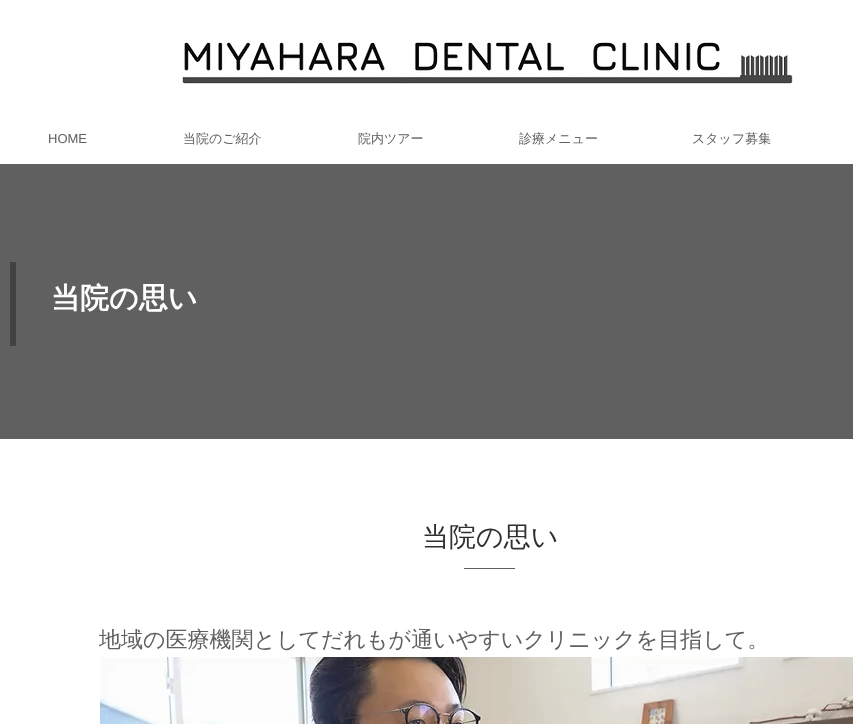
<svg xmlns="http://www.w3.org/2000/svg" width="853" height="724">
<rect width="100%" height="100%" fill="#fff"/>
<image x="182" y="42" width="611" height="42" href="media/1.png"/>
<text x="48" y="143" style="font-family:Liberation Sans;font-size:13px;fill:#606060">HOME</text>
<text x="183" y="143" style="font-family:WenQuanYi Zen Hei;font-size:13px;font-weight:500;fill:#606060">当院のご紹介</text>
<text x="358" y="143" style="font-family:WenQuanYi Zen Hei;font-size:13px;font-weight:500;fill:#606060">院内ツアー</text>
<text x="519" y="143" style="font-family:WenQuanYi Zen Hei;font-size:13px;font-weight:500;fill:#606060">診療メニュー</text>
<text x="692" y="143" style="font-family:WenQuanYi Zen Hei;font-size:13px;font-weight:500;fill:#606060">スタッフ募集</text>
<rect y="164" width="853" height="275" fill="#606060"/>
<rect x="10" y="262" width="6" height="84" fill="#424242"/>
<text x="51" y="308" style="font-family:WenQuanYi Zen Hei;font-size:29px;font-weight:bold;fill:#fff">当院の思い</text>
<text x="422" y="546" style="font-family:WenQuanYi Zen Hei;font-size:27px;font-weight:500;fill:#303030">当院の思い</text>
<rect x="464" y="568" width="51" height="1" fill="#606060"/>
<text x="99" y="647" style="font-family:WenQuanYi Zen Hei;font-size:22px;font-weight:500;fill:#606060">地域の医療機関としてだれもが通いやすいクリニックを目指して。</text>
<image x="100" y="657" width="753" height="67" href="media/2.png"/>
</svg>
